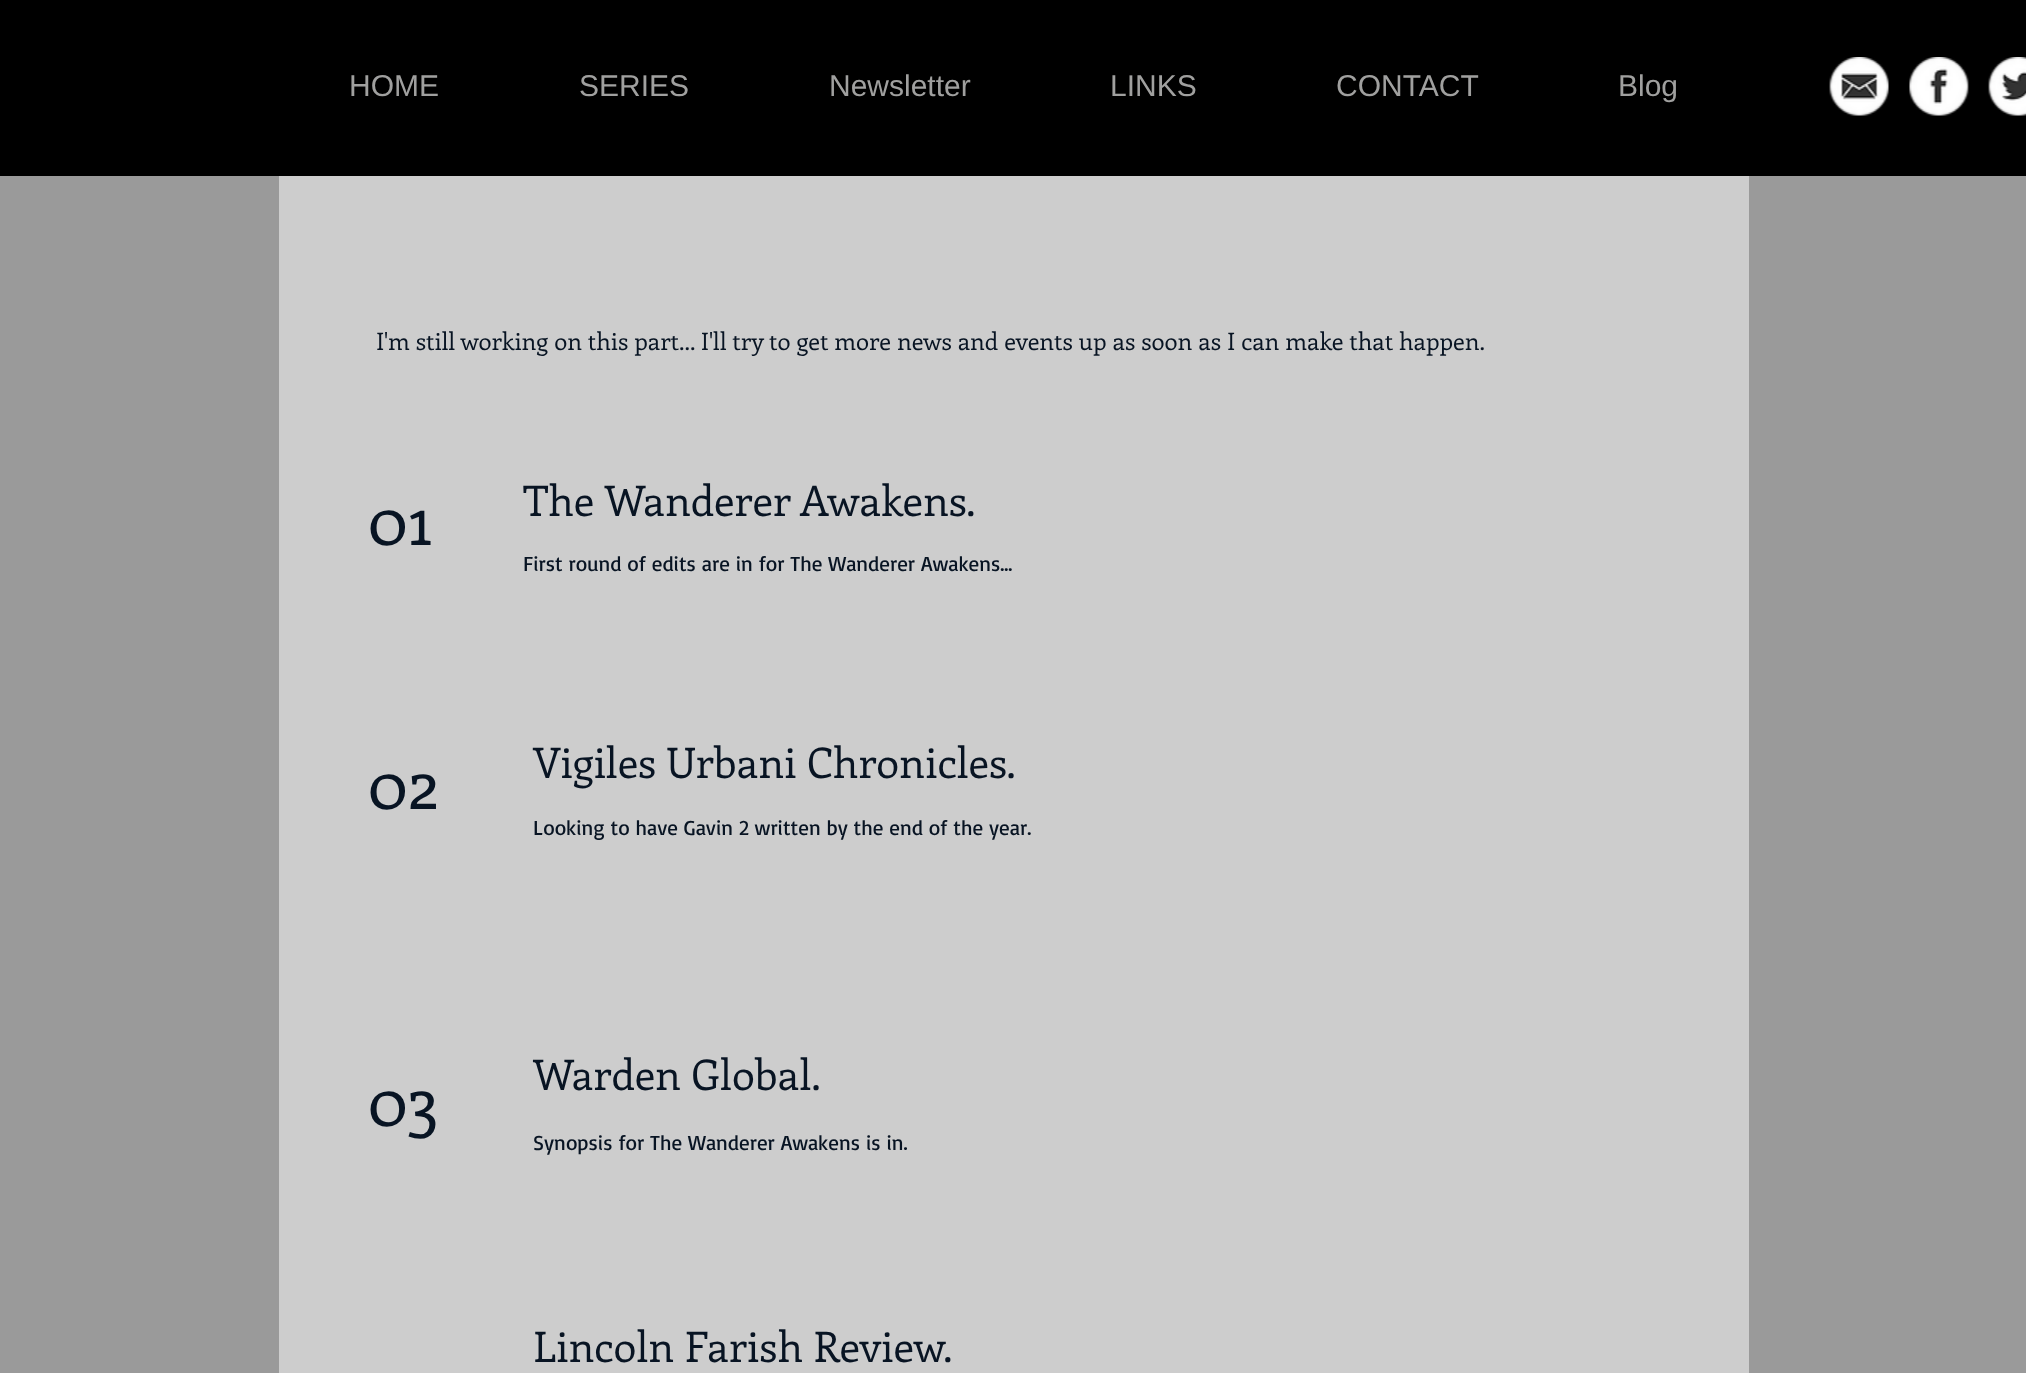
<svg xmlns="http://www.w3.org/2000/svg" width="2026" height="1373">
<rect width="100%" height="100%" fill="#9a9a9a"/>
<rect width="2026" height="176" fill="#000"/>
<text x="349" y="96" style="font-family:Liberation Sans;font-size:30px;fill:#a0a09f">HOME</text>
<text x="579" y="96" style="font-family:Liberation Sans;font-size:30px;fill:#a0a09f">SERIES</text>
<text x="829" y="96" style="font-family:Liberation Sans;font-size:30px;fill:#a0a09f">Newsletter</text>
<text x="1110" y="96" style="font-family:Liberation Sans;font-size:30px;fill:#a0a09f">LINKS</text>
<text x="1336" y="96" style="font-family:Liberation Sans;font-size:30px;fill:#a0a09f">CONTACT</text>
<text x="1618" y="96" style="font-family:Liberation Sans;font-size:30px;fill:#a0a09f">Blog</text>
<image x="1829" y="57" width="60" height="59" href="media/1.png"/>
<image x="1909" y="57" width="60" height="59" href="media/2.png"/>
<image x="1988" y="57" width="38" height="59" href="media/3.png"/>
<rect x="279" y="176" width="1470" height="1197" fill="#cdcdcd"/>
<text x="376" y="350" style="font-family:Enriqueta;font-size:24px;fill:#081423">I'm still working on this part... I'll try to get more news and events up as soon as I can make that happen.</text>
<text x="368" y="545" style="font-family:Enriqueta;font-size:68px;fill:#081423">01</text>
<text x="523" y="516" style="font-family:Enriqueta;font-size:42px;fill:#081423">The Wanderer Awakens.</text>
<text x="523" y="571" style="font-family:Basic;font-size:21px;fill:#081423">First round of edits are in for The Wanderer Awakens...</text>
<text x="368" y="809" style="font-family:Enriqueta;font-size:68px;fill:#081423">02</text>
<text x="533" y="778" style="font-family:Enriqueta;font-size:42px;fill:#081423">Vigiles Urbani Chronicles.</text>
<text x="533" y="835" style="font-family:Basic;font-size:21px;fill:#081423">Looking to have Gavin 2 written by the end of the year.</text>
<text x="368" y="1126" style="font-family:Enriqueta;font-size:68px;fill:#081423">03</text>
<text x="533" y="1090" style="font-family:Enriqueta;font-size:42px;fill:#081423">Warden Global.</text>
<text x="533" y="1150" style="font-family:Basic;font-size:21px;fill:#081423">Synopsis for The Wanderer Awakens is in.</text>
<text x="533" y="1362" style="font-family:Enriqueta;font-size:42px;fill:#081423">Lincoln Farish Review.</text>
</svg>
